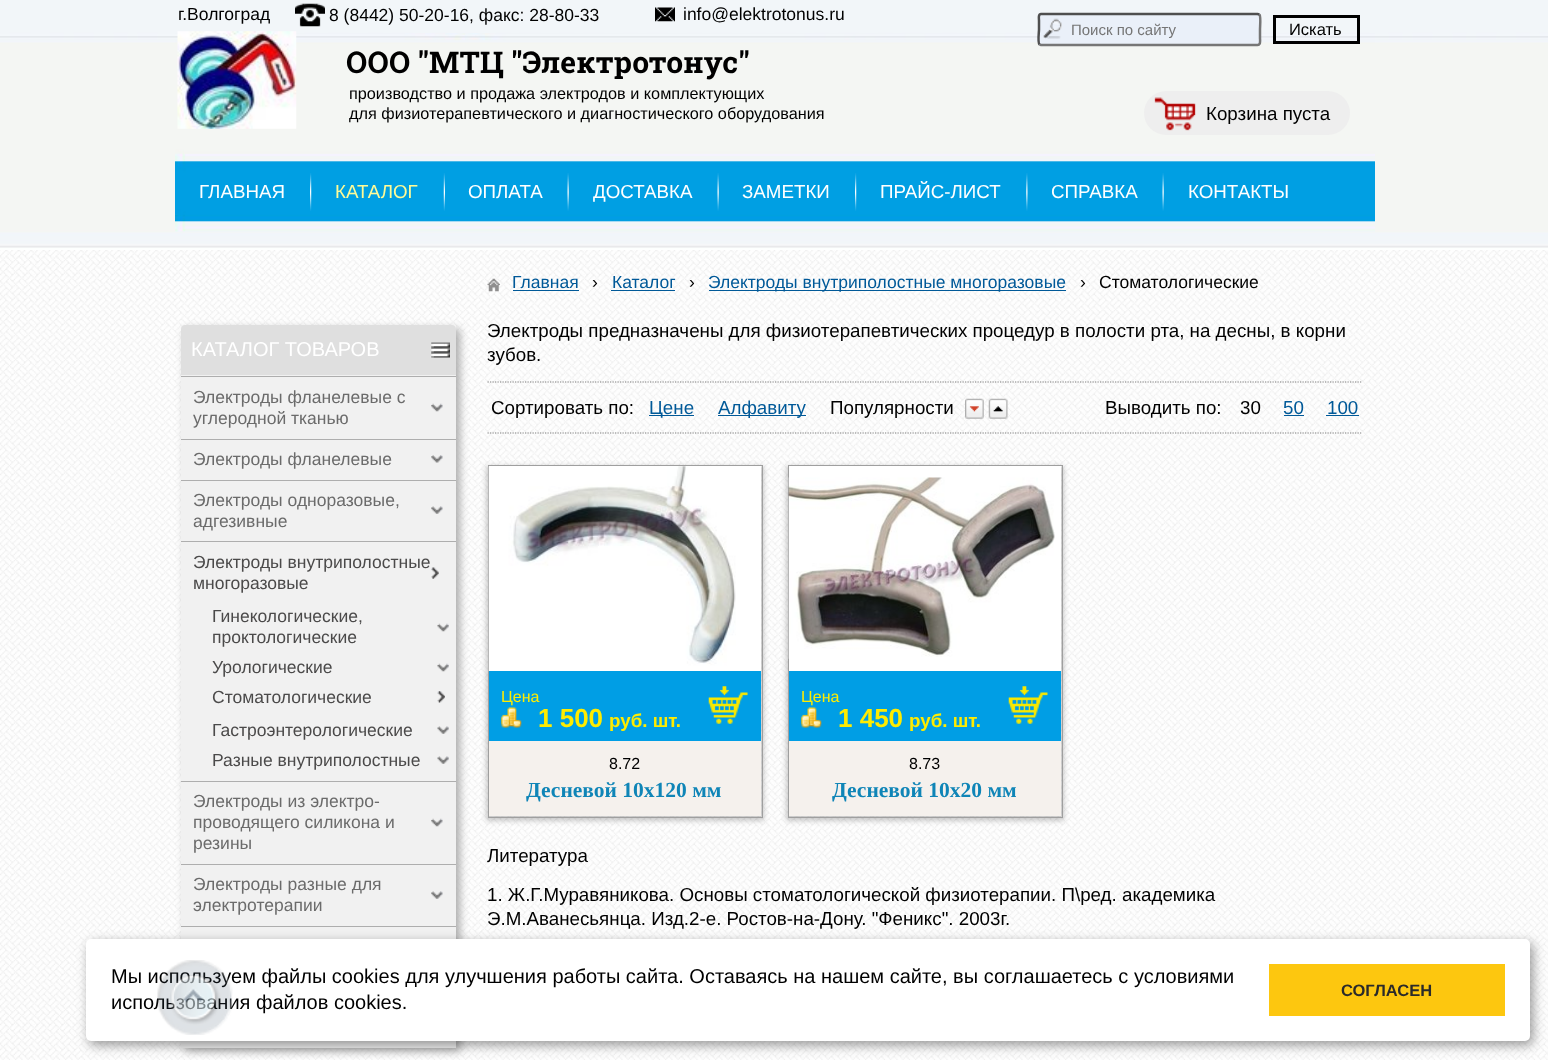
<svg xmlns="http://www.w3.org/2000/svg" width="1548" height="1060">
<rect width="100%" height="100%" fill="#fff"/>
<image x="0" y="0" width="1548" height="1060" href="media/1.png"/>
<image x="175" y="33" width="1200" height="199" href="media/2.png"/>
<text x="178" y="20" style="font-family:Liberation Sans;font-size:17.5px;fill:#000">г.Волгоград</text>
<image x="295" y="3" width="30" height="24" href="media/3.png"/>
<text x="329" y="21" style="font-family:Liberation Sans;font-size:17.5px;fill:#000">8 (8442) 50-20-16, факс: 28-80-33</text>
<image x="655" y="7" width="20" height="15" href="media/4.png"/>
<text x="683" y="20" style="font-family:Liberation Sans;font-size:17.5px;fill:#000">info@elektrotonus.ru</text>
<image x="177" y="31" width="120" height="98" href="media/5.png"/>
<text x="346" y="73" style="font-family:Roboto Slab;font-size:30px;font-weight:bold;fill:#000">ООО "МТЦ "Электротонус"</text>
<text x="349" y="99" style="font-family:Liberation Sans;font-size:16.25px;fill:#000">производство и продажа электродов и комплектующих</text>
<text x="349" y="119" style="font-family:Liberation Sans;font-size:16.25px;fill:#000">для физиотерапевтического и диагностического оборудования</text>
<rect x="1038" y="13" width="223" height="33" rx="4" fill="#eaf0f9"/>
<image x="1043" y="18" width="19" height="21" href="media/6.png"/>
<path d="M1259.5 14.5c1.5 2 .5 12 .5 15v8.5c0 2 1 7-2.5 7h-216.5l-1.5-.5" fill="none" stroke="#767676" stroke-width="2.5"/>
<path d="M1039.5 44.5c-2-2-.5-12.5-.5-15v-9c0-1.5-1-6.5 2-6.5h216.5l2 .5" fill="none" stroke="#4f4f4f" stroke-width="2.5"/>
<text x="1071" y="35" style="font-family:Liberation Sans;font-size:15px;fill:#757575">Поиск по сайту</text>
<rect x="1274.5" y="16.5" width="84" height="26" fill="none" stroke="#000" stroke-width="3"/>
<text x="1289" y="35" style="font-family:Liberation Sans;font-size:16.5px;fill:#000">Искать</text>
<rect x="1144" y="91" width="206" height="44" rx="22" fill="#eee"/>
<image x="1154" y="97" width="42" height="34" href="media/7.png"/>
<text x="1206" y="120" style="font-family:Liberation Sans;font-size:18.75px;fill:#000">Корзина пуста</text>
<text x="199" y="198" style="font-family:Liberation Sans;font-size:18.75px;fill:#fff">ГЛАВНАЯ</text>
<image x="310" y="173" width="2" height="38" href="media/8.png"/>
<text x="335" y="198" style="font-family:Liberation Sans;font-size:18.75px;fill:#fffb97">КАТАЛОГ</text>
<image x="443" y="173" width="2" height="38" href="media/9.png"/>
<text x="468" y="198" style="font-family:Liberation Sans;font-size:18.75px;fill:#fff">ОПЛАТА</text>
<image x="567" y="173" width="2" height="38" href="media/10.png"/>
<text x="593" y="198" style="font-family:Liberation Sans;font-size:18.75px;fill:#fff">ДОСТАВКА</text>
<image x="717" y="173" width="2" height="38" href="media/10.png"/>
<text x="742" y="198" style="font-family:Liberation Sans;font-size:18.75px;fill:#fff">ЗАМЕТКИ</text>
<image x="855" y="173" width="2" height="38" href="media/8.png"/>
<text x="880" y="198" style="font-family:Liberation Sans;font-size:18.75px;fill:#fff">ПРАЙС-ЛИСТ</text>
<image x="1026" y="173" width="2" height="38" href="media/11.png"/>
<text x="1051" y="198" style="font-family:Liberation Sans;font-size:18.75px;fill:#fff">СПРАВКА</text>
<image x="1162" y="173" width="2" height="38" href="media/10.png"/>
<text x="1188" y="198" style="font-family:Liberation Sans;font-size:18.75px;fill:#fff">КОНТАКТЫ</text>
<rect x="185" y="329" width="275" height="722" fill="#aaa" filter="blur(4px)"/>
<rect x="181" y="325" width="275" height="723" fill="#f1f1f1"/>
<path d="M185 325h267c2 0 4 2 4 4v46h-275v-46c0-2 2-4 4-4z" fill="#dfdfdf"/>
<image x="431" y="342" width="19" height="16" href="media/12.png"/>
<text x="191" y="356" style="font-family:Liberation Sans;font-size:20px;fill:#fff">КАТАЛОГ ТОВАРОВ</text>
<rect x="181" y="376" width="275" height="1" fill="#aeaeae"/>
<image x="431" y="403" width="12" height="9" href="media/13.png"/>
<text x="193" y="403" style="font-family:Liberation Sans;font-size:17.5px;fill:#6b6b6b">Электроды фланелевые с</text>
<text x="193" y="424" style="font-family:Liberation Sans;font-size:17.5px;fill:#6b6b6b">углеродной тканью</text>
<rect x="181" y="439" width="275" height="1" fill="#aeaeae"/>
<image x="431" y="455" width="12" height="8" href="media/14.png"/>
<text x="193" y="465" style="font-family:Liberation Sans;font-size:17.5px;fill:#6b6b6b">Электроды фланелевые</text>
<rect x="181" y="480" width="275" height="1" fill="#aeaeae"/>
<image x="431" y="506" width="12" height="8" href="media/15.png"/>
<text x="193" y="506" style="font-family:Liberation Sans;font-size:17.5px;fill:#6b6b6b">Электроды одноразовые,</text>
<text x="193" y="527" style="font-family:Liberation Sans;font-size:17.5px;fill:#6b6b6b">адгезивные</text>
<rect x="181" y="541" width="275" height="1" fill="#aeaeae"/>
<image x="431" y="567" width="8" height="12" href="media/16.png"/>
<text x="193" y="568" style="font-family:Liberation Sans;font-size:17.5px;fill:#4b4a4a">Электроды внутриполостные</text>
<text x="193" y="589" style="font-family:Liberation Sans;font-size:17.5px;fill:#4b4a4a">многоразовые</text>
<image x="437" y="623" width="12" height="9" href="media/17.png"/>
<text x="212" y="622" style="font-family:Liberation Sans;font-size:17.5px;fill:#4b4a4a">Гинекологические,</text>
<text x="212" y="643" style="font-family:Liberation Sans;font-size:17.5px;fill:#4b4a4a">проктологические</text>
<image x="437" y="663" width="12" height="9" href="media/17.png"/>
<text x="212" y="673" style="font-family:Liberation Sans;font-size:17.5px;fill:#4b4a4a">Урологические</text>
<image x="437" y="691" width="8" height="12" href="media/18.png"/>
<text x="212" y="703" style="font-family:Liberation Sans;font-size:17.5px;fill:#4b4a4a">Стоматологические</text>
<image x="437" y="726" width="12" height="8" href="media/19.png"/>
<text x="212" y="736" style="font-family:Liberation Sans;font-size:17.5px;fill:#4b4a4a">Гастроэнтерологические</text>
<image x="437" y="756" width="12" height="8" href="media/19.png"/>
<text x="212" y="766" style="font-family:Liberation Sans;font-size:17.5px;fill:#4b4a4a">Разные внутриполостные</text>
<rect x="181" y="781" width="275" height="1" fill="#aeaeae"/>
<image x="431" y="818" width="12" height="9" href="media/13.png"/>
<text x="193" y="807" style="font-family:Liberation Sans;font-size:17.5px;fill:#6b6b6b">Электроды из электро-</text>
<text x="193" y="828" style="font-family:Liberation Sans;font-size:17.5px;fill:#6b6b6b">проводящего силикона и</text>
<text x="193" y="849" style="font-family:Liberation Sans;font-size:17.5px;fill:#6b6b6b">резины</text>
<rect x="181" y="864" width="275" height="1" fill="#aeaeae"/>
<image x="431" y="891" width="12" height="8" href="media/15.png"/>
<text x="193" y="890" style="font-family:Liberation Sans;font-size:17.5px;fill:#6b6b6b">Электроды разные для</text>
<text x="193" y="911" style="font-family:Liberation Sans;font-size:17.5px;fill:#6b6b6b">электротерапии</text>
<rect x="181" y="926" width="275" height="1" fill="#aeaeae"/>
<image x="487" y="278" width="13" height="14" href="media/20.png"/>
<text x="512" y="288" style="font-family:Liberation Sans;font-size:17.5px;fill:#005998">Главная</text>
<rect x="513" y="290" width="66" height="1" fill="#005998"/>
<text x="592" y="288" style="font-family:Liberation Sans;font-size:17.5px;fill:#000">›</text>
<text x="612" y="288" style="font-family:Liberation Sans;font-size:17.5px;fill:#005998">Каталог</text>
<rect x="611" y="290" width="64" height="1" fill="#005998"/>
<text x="689" y="288" style="font-family:Liberation Sans;font-size:17.5px;fill:#000">›</text>
<rect x="709" y="290" width="357" height="1" fill="#005998"/>
<text x="708" y="288" style="font-family:Liberation Sans;font-size:17.5px;fill:#005998">Электроды внутриполостные многоразовые</text>
<text x="1080" y="288" style="font-family:Liberation Sans;font-size:17.5px;fill:#000">›</text>
<text x="1099" y="288" style="font-family:Liberation Sans;font-size:17.5px;fill:#000">Стоматологические</text>
<text x="487" y="337" style="font-family:Liberation Sans;font-size:18.75px;fill:#000">Электроды предназначены для физиотерапевтических процедур в полости рта, на десны, в корни</text>
<text x="487" y="361" style="font-family:Liberation Sans;font-size:18.75px;fill:#000">зубов.</text>
<path d="M487.5 382h875" fill="none" stroke="#7f7f7f" stroke-width="1.2" stroke-dasharray="1.25 1.25"/>
<path d="M487.5 433h875" fill="none" stroke="#7f7f7f" stroke-width="1.2" stroke-dasharray="1.25 1.25"/>
<text x="491" y="414" style="font-family:Liberation Sans;font-size:18.75px;fill:#000">Сортировать по:</text>
<rect x="649" y="415" width="45" height="1" fill="#005998"/>
<text x="649" y="414" style="font-family:Liberation Sans;font-size:18.75px;fill:#005998">Цене</text>
<rect x="718" y="415" width="88" height="1" fill="#005998"/>
<text x="718" y="414" style="font-family:Liberation Sans;font-size:18.75px;fill:#005998">Алфавиту</text>
<text x="830" y="414" style="font-family:Liberation Sans;font-size:18.75px;fill:#000">Популярности</text>
<image x="965" y="398" width="19" height="21" href="media/21.png"/>
<image x="988" y="398" width="20" height="21" href="media/22.png"/>
<text x="1105" y="414" style="font-family:Liberation Sans;font-size:18.75px;fill:#000">Выводить по:</text>
<text x="1240" y="414" style="font-family:Liberation Sans;font-size:18.75px;fill:#000">30</text>
<text x="1283" y="414" style="font-family:Liberation Sans;font-size:18.75px;fill:#005998">50</text>
<rect x="1284" y="415" width="20" height="1" fill="#005998"/>
<text x="1327" y="414" style="font-family:Liberation Sans;font-size:18.75px;fill:#005998">100</text>
<rect x="1326" y="415" width="33" height="1" fill="#005998"/>
<rect x="486" y="466" width="278" height="355" fill="#00000033" filter="blur(2.5px)"/>
<rect x="488.5" y="465.5" width="274" height="352" fill="none" stroke="#9f9f9f"/>
<rect x="489" y="466" width="272" height="205" fill="#fff"/>
<image x="488" y="466" width="248" height="206" href="media/23.png"/>
<rect x="489" y="671" width="272" height="70" fill="#009ee5"/>
<text x="501" y="702" style="font-family:Liberation Sans;font-size:16px;fill:#ffec00">Цена</text>
<image x="708" y="686" width="40" height="38" href="media/24.png"/>
<image x="501" y="707" width="21" height="21" href="media/25.png"/>
<text x="538" y="727" style="font-family:Liberation Sans;font-size:26px;font-weight:bold;fill:#ffec00">1 500</text>
<text x="609" y="727" style="font-family:Liberation Sans;font-size:18.75px;font-weight:bold;fill:#ffec00">руб. шт.</text>
<rect x="489" y="741" width="272" height="75" fill="#f5f1ed"/>
<text x="609" y="769" style="font-family:Liberation Sans;font-size:16px;fill:#000">8.72</text>
<text x="526" y="797" style="font-family:Liberation Serif;font-size:21.5px;font-weight:bold;fill:#0f85b7">Десневой 10х120 мм</text>
<rect x="786" y="466" width="278" height="355" fill="#00000033" filter="blur(2.5px)"/>
<rect x="788.5" y="465.5" width="274" height="352" fill="none" stroke="#9f9f9f"/>
<rect x="789" y="466" width="272" height="205" fill="#fff"/>
<image x="788" y="477" width="267" height="182" href="media/26.png"/>
<rect x="789" y="671" width="272" height="70" fill="#009ee5"/>
<text x="801" y="702" style="font-family:Liberation Sans;font-size:16px;fill:#ffec00">Цена</text>
<image x="1008" y="686" width="40" height="38" href="media/27.png"/>
<image x="801" y="707" width="21" height="21" href="media/25.png"/>
<text x="838" y="727" style="font-family:Liberation Sans;font-size:26px;font-weight:bold;fill:#ffec00">1 450</text>
<text x="909" y="727" style="font-family:Liberation Sans;font-size:18.75px;font-weight:bold;fill:#ffec00">руб. шт.</text>
<rect x="789" y="741" width="272" height="75" fill="#f5f1ed"/>
<text x="909" y="769" style="font-family:Liberation Sans;font-size:16px;fill:#000">8.73</text>
<text x="832" y="797" style="font-family:Liberation Serif;font-size:21.5px;font-weight:bold;fill:#0f85b7">Десневой 10х20 мм</text>
<text x="487" y="862" style="font-family:Liberation Sans;font-size:18.75px;fill:#000">Литература</text>
<text x="487" y="901" style="font-family:Liberation Sans;font-size:18.75px;fill:#000">1. Ж.Г.Муравяникова. Основы стоматологической физиотерапии. П\ред. академика</text>
<text x="487" y="925" style="font-family:Liberation Sans;font-size:18.75px;fill:#000">Э.М.Аванесьянца. Изд.2-е. Ростов-на-Дону. "Феникс". 2003г.</text>
<rect x="89" y="943" width="1444" height="102" rx="5" fill="#00000066" filter="blur(6px)"/>
<rect x="86" y="939" width="1444" height="102" rx="5" fill="#fff"/>
<text x="111" y="983" style="font-family:Liberation Sans;font-size:20px;fill:#000">Мы используем файлы cookies для улучшения работы сайта. Оставаясь на нашем сайте, вы соглашаетесь с условиями</text>
<text x="111" y="1009" style="font-family:Liberation Sans;font-size:20px;fill:#000">использования файлов cookies.</text>
<image x="157" y="960" width="76" height="75" href="media/28.png"/>
<rect x="1269" y="964" width="236" height="52" fill="#fdc70f"/>
<text x="1341" y="996" style="font-family:Liberation Sans;font-size:16.5px;font-weight:bold;fill:#2a2a2a">СОГЛАСЕН</text>
</svg>
